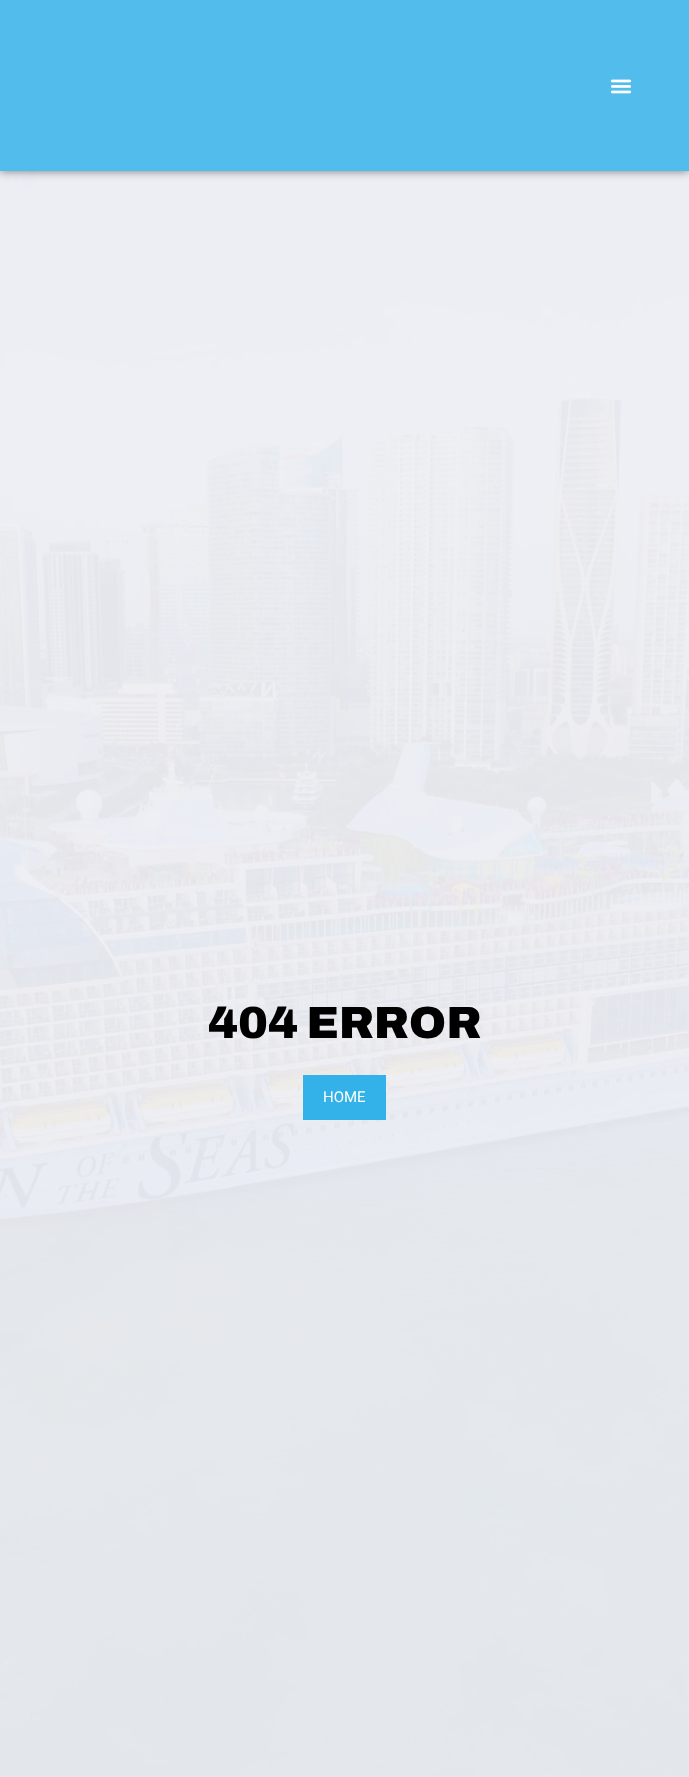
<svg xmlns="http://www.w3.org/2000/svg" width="689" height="1777">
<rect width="100%" height="100%" fill="#fff"/>
<image x="0" y="171" width="689" height="1606" href="media/2.png"/>
<rect width="689" height="171" fill="#00000080" filter="blur(5px)"/>
<rect width="689" height="171" fill="#52bdec"/>
<image x="610" y="79" width="22" height="15" href="media/1.png"/>
<text x="208" y="1038" style="font-family:Archivo;font-size:45px;font-weight:900;fill:#000">404 ERROR</text>
<rect x="303" y="1075" width="83" height="45" fill="#33b1e9"/>
<text x="323" y="1102" style="font-family:Roboto;font-size:15px;fill:#fff">HOME</text>
</svg>
